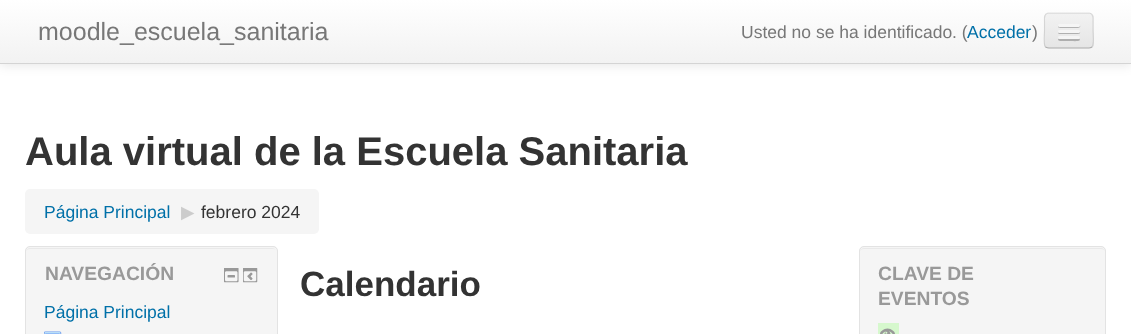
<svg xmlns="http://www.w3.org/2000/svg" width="1131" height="334">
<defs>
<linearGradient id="g1" gradientUnits="userSpaceOnUse" x1="566" y1="0" x2="566" y2="63"><stop offset="0" stop-color="#fff"/><stop offset="1" stop-color="#f2f2f2"/></linearGradient>
<clipPath id="clip1"><rect x="1044" y="13" width="50" height="36" rx="5"/></clipPath>
<linearGradient id="g2" gradientUnits="userSpaceOnUse" x1="1069" y1="14" x2="1069" y2="48"><stop offset="0" stop-color="#f2f2f2"/><stop offset="1" stop-color="#e5e5e5"/></linearGradient>
</defs>
<rect width="100%" height="100%" fill="#fff"/>
<rect y="1" width="1131" height="64" fill="#0000001a" filter="blur(6px)"/>
<rect width="1131" height="63" fill="url(#g1)"/>
<rect y="63" width="1131" height="1" fill="#d4d4d4"/>
<text x="38" y="40" style="font-family:Liberation Sans;font-size:25px;fill:#777">moodle_escuela_sanitaria</text>
<text x="741" y="38" style="font-family:Liberation Sans;font-size:17.5px;fill:#777">Usted no se ha identificado. (</text>
<text x="967" y="38" style="font-family:Liberation Sans;font-size:17.5px;fill:#0070a8">Acceder</text>
<text x="1032" y="38" style="font-family:Liberation Sans;font-size:17.5px;fill:#777">)</text>
<rect x="1044" y="13" width="50" height="36" rx="5" fill="#ededed"/>
<g clip-path="url(#clip1)">
<rect x="1044" y="14" width="50" height="34" fill="url(#g2)"/>
</g>
<path d="M1092 47c-1 .5-2 1-3 1h-40c-1.5 0-2.5-.5-3.5-1" fill="none" stroke="#00000040" stroke-width="1.2"/>
<path d="M1045.5 47c-2.5-3-1-13-1-16.5v-8.5c0-3.5-1-8 3.5-9h41.5c4.5 1 3.5 5.5 3.5 9v8.5c0 3.5 1.5 13.5-1 16.5" fill="none" stroke="#0000001a" stroke-width="1.2"/>
<path d="M1058 26c-.5 2.5 4 2 4.5 2h13c.5 0 6 .5 4.5-2.5l-1 .5z" fill="#b2b2b2"/>
<rect x="1058" y="24" width="22" height="3" rx="1.5" fill="#f5f5f5"/>
<path d="M1058 32.5c-.5 2 3.5 1.5 4.5 1.5h13c.5 0 5.5 .5 4.5-2l-1 .5c-2 0-20.5 0-21 0z" fill="#b0b0b0"/>
<rect x="1058" y="30" width="22" height="3" rx="1.5" fill="#f5f5f5"/>
<path d="M1058.5 38.5c-2 3 3.5 2.5 4 2.5h6.5c2 0 10 .5 10.5-.5c.5-1 .5-1.5 0-2c-.5 .5-20 .5-21 0z" fill="#aeaeae"/>
<rect x="1058" y="36" width="22" height="3" rx="1.5" fill="#f5f5f5"/>
<text x="25" y="165" style="font-family:Liberation Sans;font-size:40px;font-weight:bold;fill:#333">Aula virtual de la Escuela Sanitaria</text>
<rect x="25" y="189" width="294" height="45" rx="5" fill="#f5f5f5"/>
<text x="44" y="218" style="font-family:Liberation Sans;font-size:17.5px;fill:#0070a8">Página Principal</text>
<text x="181" y="218" style="font-family:DejaVu Sans;font-size:17.5px;fill:#ccc">▶︎</text>
<text x="201" y="218" style="font-family:Liberation Sans;font-size:17.5px;fill:#333">febrero 2024</text>
<rect x="25" y="246" width="253" height="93" rx="5" fill="#f5f5f5"/>
<path d="M30 249h242c2 0 3 0 4 1c-1-1-2-2-4-2h-242c-2 0-4 2-4 4c0-2 2-3 4-3z" fill="#e9e9e9"/>
<rect x="25.5" y="246.5" width="252" height="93" rx="4.5" fill="none" stroke="#e3e3e3"/>
<text x="45" y="280" style="font-family:Liberation Sans;font-size:19.25px;font-weight:bold;fill:#999">NAVEGACIÓN</text>
<image x="224" y="268" width="15" height="15" href="media/1.png"/>
<image x="243" y="268" width="15" height="15" href="media/2.png"/>
<text x="44" y="318" style="font-family:Liberation Sans;font-size:17.5px;fill:#0070a8">Página Principal</text>
<image x="44" y="331" width="18" height="3" href="media/3.png"/>
<text x="300" y="296" style="font-family:Liberation Sans;font-size:35px;font-weight:bold;fill:#333">Calendario</text>
<rect x="859" y="246" width="247" height="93" rx="5" fill="#f5f5f5"/>
<path d="M864 249h237c2 0 4 1 4 3c0-2-2-4-4-4h-237c-2 0-4 2-4 4c0-2 2-3 4-3z" fill="#e9e9e9"/>
<rect x="859.5" y="246.5" width="246" height="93" rx="4.5" fill="none" stroke="#e3e3e3"/>
<text x="878" y="280" style="font-family:Liberation Sans;font-size:19.25px;font-weight:bold;fill:#999">CLAVE DE</text>
<text x="878" y="305" style="font-family:Liberation Sans;font-size:19.25px;font-weight:bold;fill:#999">EVENTOS</text>
<rect x="878" y="323" width="21" height="11" fill="#d6f8cd"/>
<image x="880" y="328" width="15" height="6" href="media/4.png"/>
</svg>
